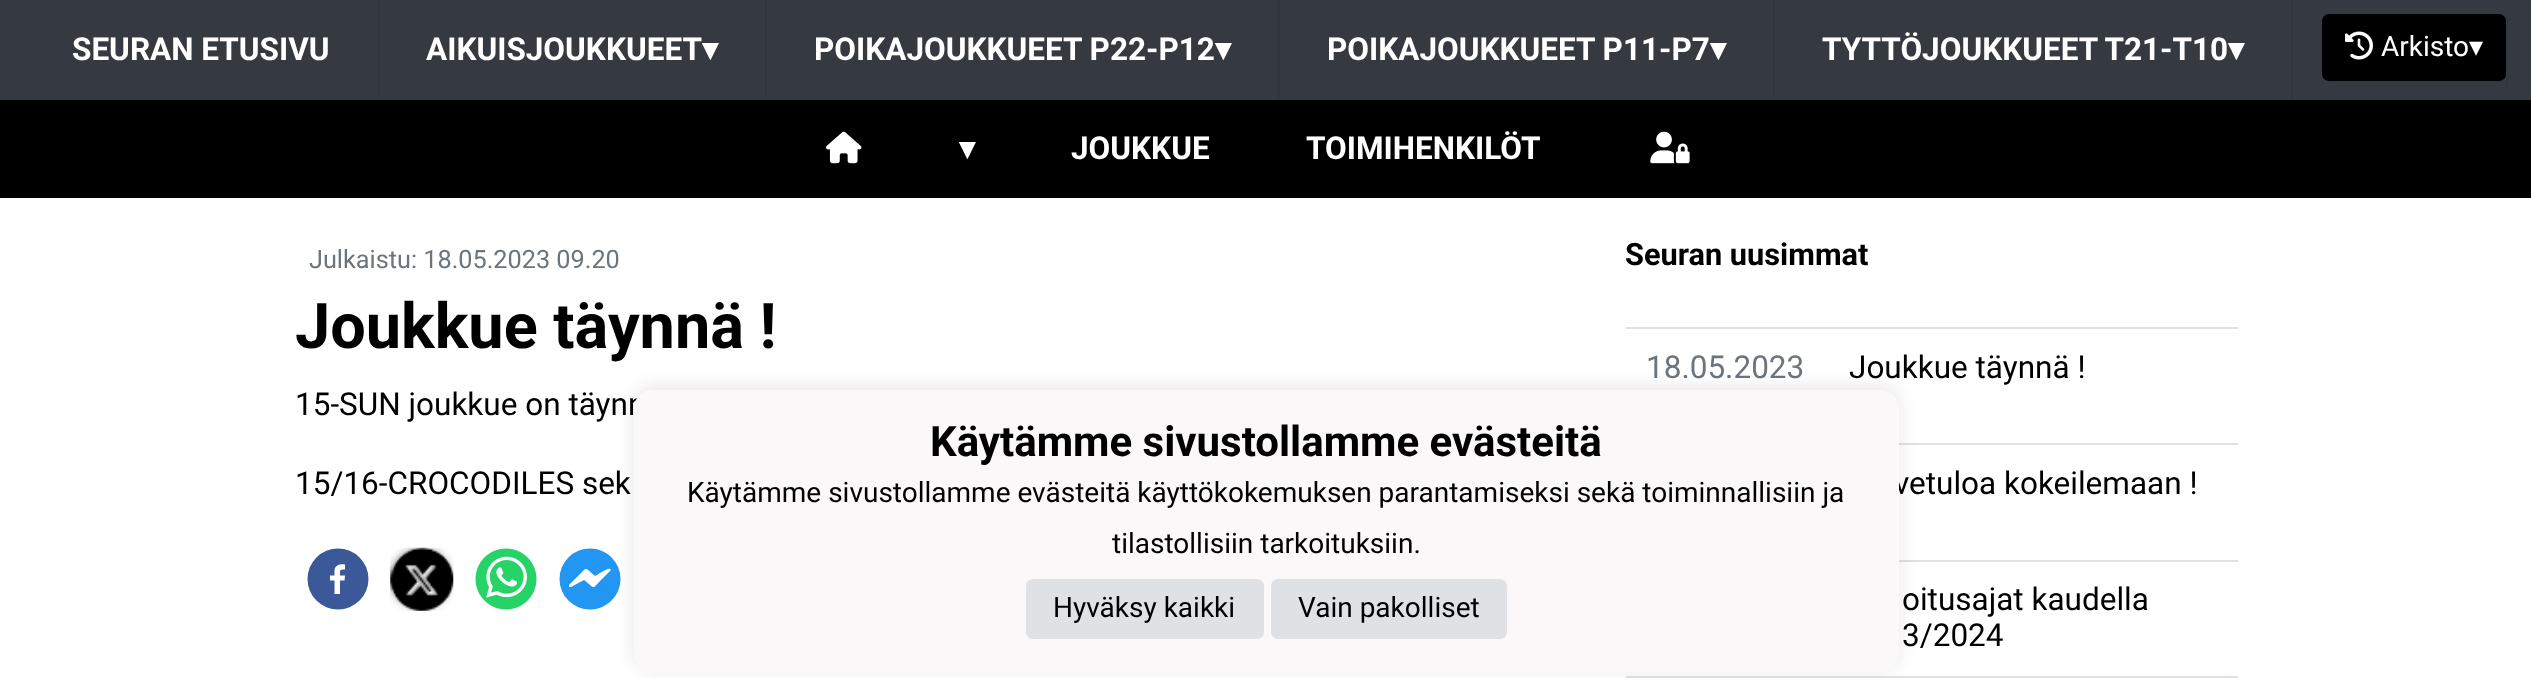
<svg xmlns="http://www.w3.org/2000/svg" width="2531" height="678">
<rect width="100%" height="100%" fill="#fff"/>
<rect width="2531" height="100" fill="#343a40"/>
<rect x="378" width="2" height="100" fill="#31373d"/>
<text x="72" y="60" style="font-family:Roboto;font-size:31.5px;font-weight:bold;fill:#fff">SEURAN ETUSIVU</text>
<rect x="765" width="2" height="100" fill="#31373d"/>
<text x="426" y="60" style="font-family:Roboto;font-size:31.5px;font-weight:bold;fill:#fff">AIKUISJOUKKUEET</text>
<text x="702" y="60" style="font-family:DejaVu Sans;font-size:31.5px;font-weight:bold;fill:#fff">▾</text>
<rect x="1278" width="2" height="100" fill="#31373d"/>
<text x="814" y="60" style="font-family:Roboto;font-size:31.5px;font-weight:bold;fill:#fff">POIKAJOUKKUEET P22-P12</text>
<text x="1215" y="60" style="font-family:DejaVu Sans;font-size:31.5px;font-weight:bold;fill:#fff">▾</text>
<rect x="1773" width="2" height="100" fill="#31373d"/>
<text x="1327" y="60" style="font-family:Roboto;font-size:31.5px;font-weight:bold;fill:#fff">POIKAJOUKKUEET P11-P7</text>
<text x="1710" y="60" style="font-family:DejaVu Sans;font-size:31.5px;font-weight:bold;fill:#fff">▾</text>
<rect x="2291" width="2" height="100" fill="#31373d"/>
<text x="1822" y="60" style="font-family:Roboto;font-size:31.5px;font-weight:bold;fill:#fff">TYTTÖJOUKKUEET T21-T10</text>
<text x="2228" y="60" style="font-family:DejaVu Sans;font-size:31.5px;font-weight:bold;fill:#fff">▾</text>
<rect x="2506" y="14" width="2" height="75" fill="#31373d"/>
<rect x="2322" y="14" width="184" height="67" rx="7" fill="#000"/>
<image x="2345" y="31" width="28" height="29" href="media/1.png"/>
<text x="2381" y="56" style="font-family:Roboto;font-size:28px;fill:#fff">Arkisto</text>
<text x="2469" y="56" style="font-family:DejaVu Sans;font-size:28px;fill:#fff">▾</text>
<rect y="100" width="2531" height="98" fill="#000"/>
<image x="826" y="131" width="36" height="33" href="media/2.png"/>
<text x="959" y="159" style="font-family:DejaVu Sans;font-size:31.5px;font-weight:bold;fill:#fff">▾</text>
<text x="1071" y="159" style="font-family:Roboto;font-size:31.5px;font-weight:bold;fill:#fff">JOUKKUE</text>
<text x="1306" y="159" style="font-family:Roboto;font-size:31.5px;font-weight:bold;fill:#fff">TOIMIHENKILÖT</text>
<image x="1650" y="131" width="40" height="33" href="media/3.png"/>
<text x="309" y="268" style="font-family:Roboto;font-size:25.25px;fill:#6c757d">Julkaistu: 18.05.2023 09.20</text>
<text x="295" y="348" style="font-family:Roboto;font-size:63px;font-weight:bold;fill:#000">Joukkue täynnä !</text>
<text x="295" y="415" style="font-family:Roboto;font-size:31.5px;fill:#000">15-SUN joukkue on täynn</text>
<text x="295" y="494" style="font-family:Roboto;font-size:31.5px;fill:#000">15/16-CROCODILES sek</text>
<circle cx="338" cy="579" r="30.5" fill="#3b5998"/>
<path d="M340 594v-13.5h4.5l.5-5h-5c0-5.5-1-6 5-6v-5c-4-.5-9.5 0-10.5 5.5v5.5h-4.5v5h4.5v13.5z" fill="#fff"/>
<image x="390" y="547" width="64" height="64" href="media/4.png"/>
<image x="475" y="548" width="62" height="62" href="media/5.png"/>
<circle cx="590" cy="579" r="30.5" fill="#2196f3"/>
<path d="M610 569c-1-2-13 6-15 7l-8-7c-1 0-2 0-2 0l-16 16c0 0 0 1 0 2h2l13-7c12 9 7 10 18-1l9-9z" fill="#fff"/>
<text x="1625" y="265" style="font-family:Roboto;font-size:30.75px;font-weight:bold;fill:#000">Seuran uusimmat</text>
<text x="1646" y="378" style="font-family:Roboto;font-size:31.5px;fill:#6c757d">18.05.2023</text>
<rect x="1626" y="327" width="612" height="2" fill="#dee2e6"/>
<text x="1849" y="378" style="font-family:Roboto;font-size:31.5px;fill:#000">Joukkue täynnä !</text>
<rect x="1899" y="443" width="339" height="2" fill="#dee2e6"/>
<text x="1894" y="494" style="font-family:Roboto;font-size:31.5px;fill:#000">vetuloa kokeilemaan !</text>
<rect x="1899" y="560" width="339" height="2" fill="#dee2e6"/>
<text x="1902" y="610" style="font-family:Roboto;font-size:31.5px;fill:#000">oitusajat kaudella</text>
<text x="1902" y="646" style="font-family:Roboto;font-size:31.5px;fill:#000">3/2024</text>
<rect x="1626" y="676" width="612" height="2" fill="#dee2e6"/>
<rect x="634" y="387" width="1265" height="282" rx="18" fill="#0000001a" filter="blur(9px)"/>
<rect x="634" y="390" width="1265" height="282" rx="18" fill="#faf8f8"/>
<text x="930" y="456" style="font-family:Roboto;font-size:42px;font-weight:bold;fill:#000">Käytämme sivustollamme evästeitä</text>
<text x="687" y="502" style="font-family:Roboto;font-size:28px;fill:#000">Käytämme sivustollamme evästeitä käyttökokemuksen parantamiseksi sekä toiminnallisiin ja</text>
<text x="1112" y="553" style="font-family:Roboto;font-size:28px;fill:#000">tilastollisiin tarkoituksiin.</text>
<rect x="1026" y="579" width="238" height="60" rx="7" fill="#dfe1e5"/>
<text x="1053" y="617" style="font-family:Roboto;font-size:28px;fill:#000">Hyväksy kaikki</text>
<rect x="1271" y="579" width="236" height="60" rx="7" fill="#dfe1e5"/>
<text x="1298" y="617" style="font-family:Roboto;font-size:28px;fill:#000">Vain pakolliset</text>
</svg>
